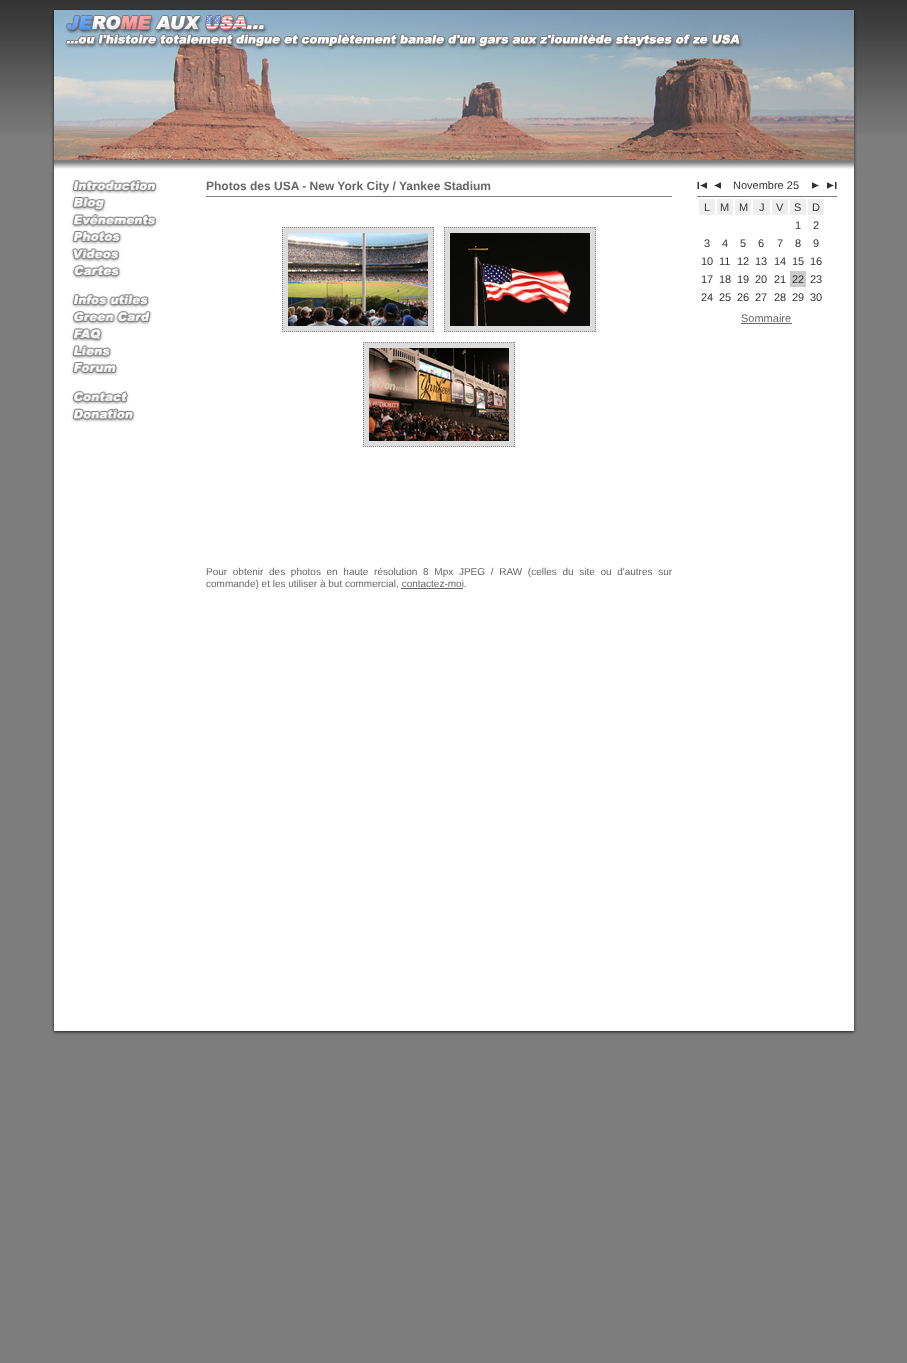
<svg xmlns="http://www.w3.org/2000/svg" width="907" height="1363">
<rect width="100%" height="100%" fill="#fff"/>
<image x="0" y="0" width="907" height="8" href="media/1.png"/>
<rect y="134" width="907" height="1229" fill="#7d7d7d"/>
<image x="0" y="8" width="907" height="126" href="media/2.png"/>
<image x="51" y="169" width="806" height="861" href="media/3.png"/>
<image x="51" y="8" width="806" height="2" href="media/4.png"/>
<image x="51" y="10" width="806" height="159" href="media/5.png"/>
<image x="71" y="179" width="87" height="15" href="media/6.png"/>
<image x="71" y="196" width="35" height="17" href="media/7.png"/>
<image x="71" y="213" width="87" height="15" href="media/8.png"/>
<image x="71" y="230" width="51" height="15" href="media/9.png"/>
<image x="71" y="248" width="50" height="14" href="media/10.png"/>
<image x="72" y="264" width="49" height="15" href="media/11.png"/>
<image x="71" y="293" width="79" height="15" href="media/12.png"/>
<image x="71" y="310" width="81" height="15" href="media/13.png"/>
<image x="71" y="327" width="32" height="16" href="media/14.png"/>
<image x="71" y="345" width="41" height="14" href="media/15.png"/>
<image x="71" y="362" width="47" height="14" href="media/16.png"/>
<image x="71" y="390" width="58" height="15" href="media/17.png"/>
<image x="71" y="408" width="64" height="15" href="media/18.png"/>
<rect x="206" y="196" width="466" height="1" fill="#7d7d7d"/>
<text x="206" y="190" style="font-family:Liberation Sans;font-size:12px;font-weight:bold;fill:#666">Photos des USA - New York City / Yankee Stadium</text>
<rect x="282" y="227" width="152" height="105" fill="#ddd"/>
<path d="M282 227.5h152" fill="none" stroke="#808080" stroke-dasharray="1 1"/>
<path d="M282 331.5h152" fill="none" stroke="#808080" stroke-dasharray="1 1"/>
<path d="M282.5 227v105" fill="none" stroke="#808080" stroke-dasharray="1 1"/>
<path d="M433.5 227v105" fill="none" stroke="#808080" stroke-dasharray="1 1"/>
<rect x="444" y="227" width="152" height="105" fill="#ddd"/>
<path d="M444 227.5h152" fill="none" stroke="#808080" stroke-dasharray="1 1"/>
<image x="288" y="233" width="140" height="93" href="media/19.png"/>
<path d="M444 331.5h152" fill="none" stroke="#808080" stroke-dasharray="1 1"/>
<path d="M444.5 227v105" fill="none" stroke="#808080" stroke-dasharray="1 1"/>
<image x="450" y="233" width="140" height="93" href="media/20.png"/>
<path d="M595.5 227v105" fill="none" stroke="#808080" stroke-dasharray="1 1"/>
<rect x="363" y="342" width="152" height="105" fill="#ddd"/>
<path d="M363 342.5h152" fill="none" stroke="#808080" stroke-dasharray="1 1"/>
<path d="M363 446.5h152" fill="none" stroke="#808080" stroke-dasharray="1 1"/>
<path d="M363.5 342v105" fill="none" stroke="#808080" stroke-dasharray="1 1"/>
<image x="369" y="348" width="140" height="93" href="media/21.png"/>
<path d="M514.5 342v105" fill="none" stroke="#808080" stroke-dasharray="1 1"/>
<text x="206" y="575" word-spacing="2.9" style="font-family:Liberation Sans;font-size:10px;fill:#666">Pour obtenir des photos en haute résolution 8 Mpx JPEG / RAW (celles du site ou d'autres sur</text>
<text x="206" y="587" style="font-family:Liberation Sans;font-size:10px;fill:#666">commande) et les utiliser à but commercial, contactez-moi.</text>
<rect x="401" y="588" width="62" height="1" fill="#666"/>
<rect x="697" y="196" width="140" height="1" fill="#7d7d7d"/>
<image x="697" y="182" width="10" height="7" href="media/22.png"/>
<image x="714" y="182" width="7" height="7" href="media/23.png"/>
<text x="733" y="189" style="font-family:Liberation Sans;font-size:11px;fill:#333">Novembre 25</text>
<image x="812" y="182" width="7" height="7" href="media/24.png"/>
<image x="827" y="182" width="10" height="7" href="media/25.png"/>
<rect x="699" y="199" width="16" height="16" fill="#efefef"/>
<text x="704" y="211" style="font-family:Liberation Sans;font-size:11px;fill:#333">L</text>
<rect x="717" y="199" width="16" height="16" fill="#efefef"/>
<text x="720" y="211" style="font-family:Liberation Sans;font-size:11px;fill:#333">M</text>
<rect x="735" y="199" width="16" height="16" fill="#efefef"/>
<text x="739" y="211" style="font-family:Liberation Sans;font-size:11px;fill:#333">M</text>
<rect x="753" y="199" width="17" height="16" fill="#efefef"/>
<text x="759" y="211" style="font-family:Liberation Sans;font-size:11px;fill:#333">J</text>
<rect x="772" y="199" width="16" height="16" fill="#efefef"/>
<text x="776" y="211" style="font-family:Liberation Sans;font-size:11px;fill:#333">V</text>
<rect x="790" y="199" width="16" height="16" fill="#efefef"/>
<text x="794" y="211" style="font-family:Liberation Sans;font-size:11px;fill:#333">S</text>
<rect x="808" y="199" width="16" height="16" fill="#efefef"/>
<text x="812" y="211" style="font-family:Liberation Sans;font-size:11px;fill:#333">D</text>
<text x="795" y="229" style="font-family:Liberation Sans;font-size:11px;fill:#333">1</text>
<text x="813" y="229" style="font-family:Liberation Sans;font-size:11px;fill:#333">2</text>
<text x="704" y="247" style="font-family:Liberation Sans;font-size:11px;fill:#333">3</text>
<text x="722" y="247" style="font-family:Liberation Sans;font-size:11px;fill:#333">4</text>
<text x="740" y="247" style="font-family:Liberation Sans;font-size:11px;fill:#333">5</text>
<text x="758" y="247" style="font-family:Liberation Sans;font-size:11px;fill:#333">6</text>
<text x="777" y="247" style="font-family:Liberation Sans;font-size:11px;fill:#333">7</text>
<text x="795" y="247" style="font-family:Liberation Sans;font-size:11px;fill:#333">8</text>
<text x="813" y="247" style="font-family:Liberation Sans;font-size:11px;fill:#333">9</text>
<text x="701" y="265" style="font-family:Liberation Sans;font-size:11px;fill:#333">10</text>
<text x="719" y="265" style="font-family:Liberation Sans;font-size:11px;fill:#333">11</text>
<text x="737" y="265" style="font-family:Liberation Sans;font-size:11px;fill:#333">12</text>
<text x="755" y="265" style="font-family:Liberation Sans;font-size:11px;fill:#333">13</text>
<text x="774" y="265" style="font-family:Liberation Sans;font-size:11px;fill:#333">14</text>
<text x="792" y="265" style="font-family:Liberation Sans;font-size:11px;fill:#333">15</text>
<text x="810" y="265" style="font-family:Liberation Sans;font-size:11px;fill:#333">16</text>
<text x="701" y="283" style="font-family:Liberation Sans;font-size:11px;fill:#333">17</text>
<text x="719" y="283" style="font-family:Liberation Sans;font-size:11px;fill:#333">18</text>
<text x="737" y="283" style="font-family:Liberation Sans;font-size:11px;fill:#333">19</text>
<text x="755" y="283" style="font-family:Liberation Sans;font-size:11px;fill:#333">20</text>
<text x="774" y="283" style="font-family:Liberation Sans;font-size:11px;fill:#333">21</text>
<rect x="790" y="271" width="16" height="16" fill="#ccc"/>
<text x="792" y="283" style="font-family:Liberation Sans;font-size:11px;fill:#333">22</text>
<text x="810" y="283" style="font-family:Liberation Sans;font-size:11px;fill:#333">23</text>
<text x="701" y="301" style="font-family:Liberation Sans;font-size:11px;fill:#333">24</text>
<text x="719" y="301" style="font-family:Liberation Sans;font-size:11px;fill:#333">25</text>
<text x="737" y="301" style="font-family:Liberation Sans;font-size:11px;fill:#333">26</text>
<text x="755" y="301" style="font-family:Liberation Sans;font-size:11px;fill:#333">27</text>
<text x="774" y="301" style="font-family:Liberation Sans;font-size:11px;fill:#333">28</text>
<text x="792" y="301" style="font-family:Liberation Sans;font-size:11px;fill:#333">29</text>
<text x="810" y="301" style="font-family:Liberation Sans;font-size:11px;fill:#333">30</text>
<text x="741" y="322" style="font-family:Liberation Sans;font-size:11px;fill:#666">Sommaire</text>
<rect x="741" y="323" width="51" height="1" fill="#666"/>
<image x="52" y="1030" width="804" height="5" href="media/26.png"/>
</svg>
